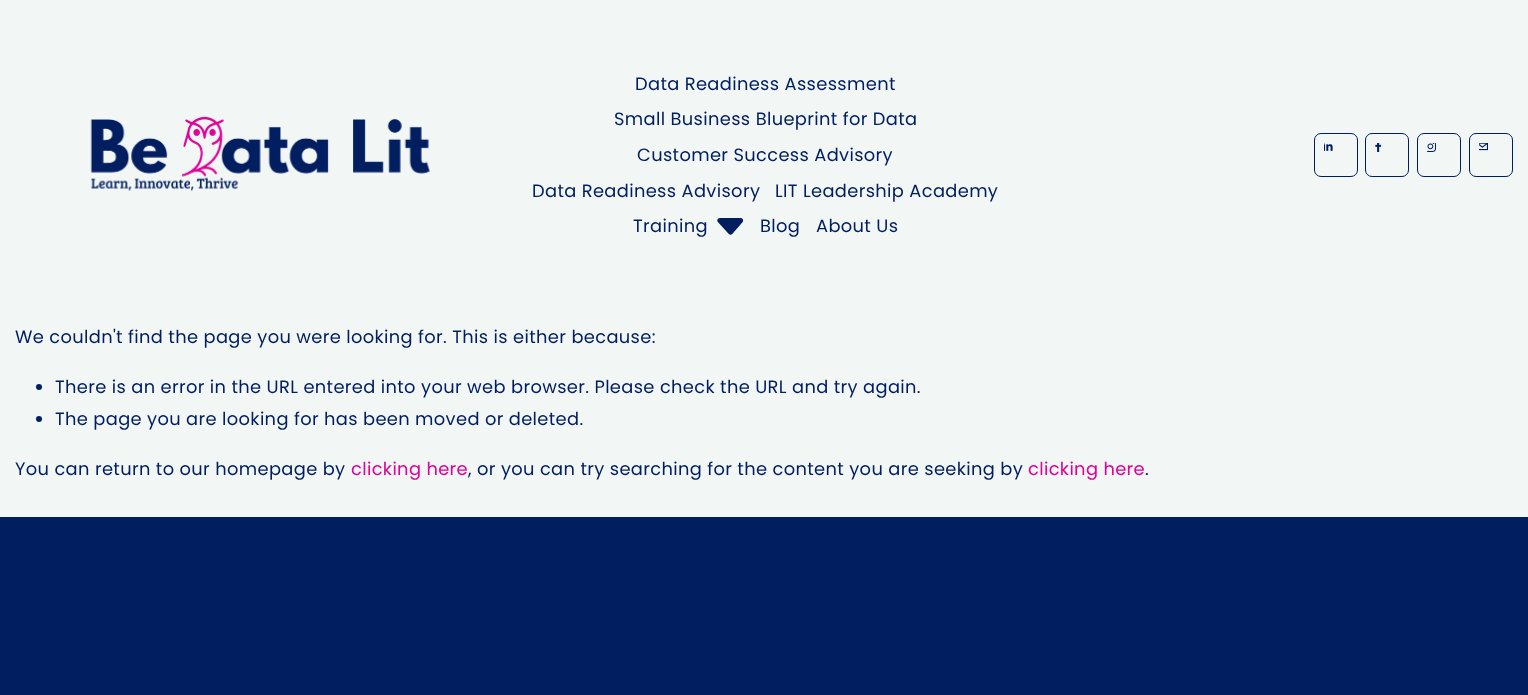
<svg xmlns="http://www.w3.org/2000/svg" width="1528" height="695">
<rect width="100%" height="100%" fill="#f2f7f6"/>
<image x="90" y="116" width="340" height="75" href="media/1.png"/>
<text x="635" y="90" style="font-family:Poppins;font-size:17.85px;letter-spacing:0.35px;fill:#001e60">Data Readiness Assessment</text>
<text x="614" y="125" style="font-family:Poppins;font-size:17.85px;letter-spacing:0.35px;fill:#001e60">Small Business Blueprint for Data</text>
<text x="637" y="161" style="font-family:Poppins;font-size:17.85px;letter-spacing:0.35px;fill:#001e60">Customer Success Advisory</text>
<text x="532" y="197" style="font-family:Poppins;font-size:17.85px;letter-spacing:0.35px;fill:#001e60">Data Readiness Advisory</text>
<text x="775" y="197" style="font-family:Poppins;font-size:17.85px;letter-spacing:0.35px;fill:#001e60">LIT Leadership Academy</text>
<text x="633" y="232" style="font-family:Poppins;font-size:17.85px;letter-spacing:0.35px;fill:#001e60">Training</text>
<path d="M740.5 220.5l-10 11.5l-10.5-11.5z" fill="#001e60" stroke="#001e60" stroke-width="5.2" stroke-linecap="round" stroke-linejoin="round"/>
<text x="760" y="232" style="font-family:Poppins;font-size:17.85px;letter-spacing:0.35px;fill:#001e60">Blog</text>
<text x="816" y="232" style="font-family:Poppins;font-size:17.85px;letter-spacing:0.35px;fill:#001e60">About Us</text>
<rect x="1314.5" y="133.5" width="43" height="43" rx="6.5" fill="none" stroke="#001e60"/>
<image x="1324" y="143" width="9" height="8" href="media/2.png"/>
<rect x="1365.5" y="133.5" width="43" height="43" rx="6.5" fill="none" stroke="#001e60"/>
<image x="1375" y="143" width="7" height="9" href="media/3.png"/>
<rect x="1417.5" y="133.5" width="43" height="43" rx="6.5" fill="none" stroke="#001e60"/>
<image x="1427" y="143" width="9" height="9" href="media/4.png"/>
<rect x="1469.5" y="133.5" width="43" height="43" rx="6.5" fill="none" stroke="#001e60"/>
<image x="1479" y="143" width="9" height="8" href="media/5.png"/>
<text x="15" y="343" style="font-family:Poppins;font-size:17.85px;letter-spacing:0.35px;fill:#001e60">We couldn't find the page you were looking for. This is either because:</text>
<circle cx="39" cy="387" r="3" fill="#001e60"/>
<text x="55" y="393" style="font-family:Poppins;font-size:17.85px;letter-spacing:0.35px;fill:#001e60">There is an error in the URL entered into your web browser. Please check the URL and try again.</text>
<circle cx="39" cy="419" r="3" fill="#001e60"/>
<text x="55" y="425" style="font-family:Poppins;font-size:17.85px;letter-spacing:0.35px;fill:#001e60">The page you are looking for has been moved or deleted.</text>
<text x="15" y="475" style="font-family:Poppins;font-size:17.85px;letter-spacing:0.35px;fill:#001e60">You can return to our homepage by</text>
<text x="351" y="475" style="font-family:Poppins;font-size:17.85px;letter-spacing:0.35px;fill:#e10098">clicking here</text>
<text x="468" y="475" style="font-family:Poppins;font-size:17.85px;letter-spacing:0.35px;fill:#001e60">, or you can try searching for the content you are seeking by</text>
<text x="1028" y="475" style="font-family:Poppins;font-size:17.85px;letter-spacing:0.35px;fill:#e10098">clicking here</text>
<text x="1145" y="475" style="font-family:Poppins;font-size:17.85px;letter-spacing:0.35px;fill:#001e60">.</text>
<rect y="517" width="1528" height="178" fill="#001e60"/>
</svg>
